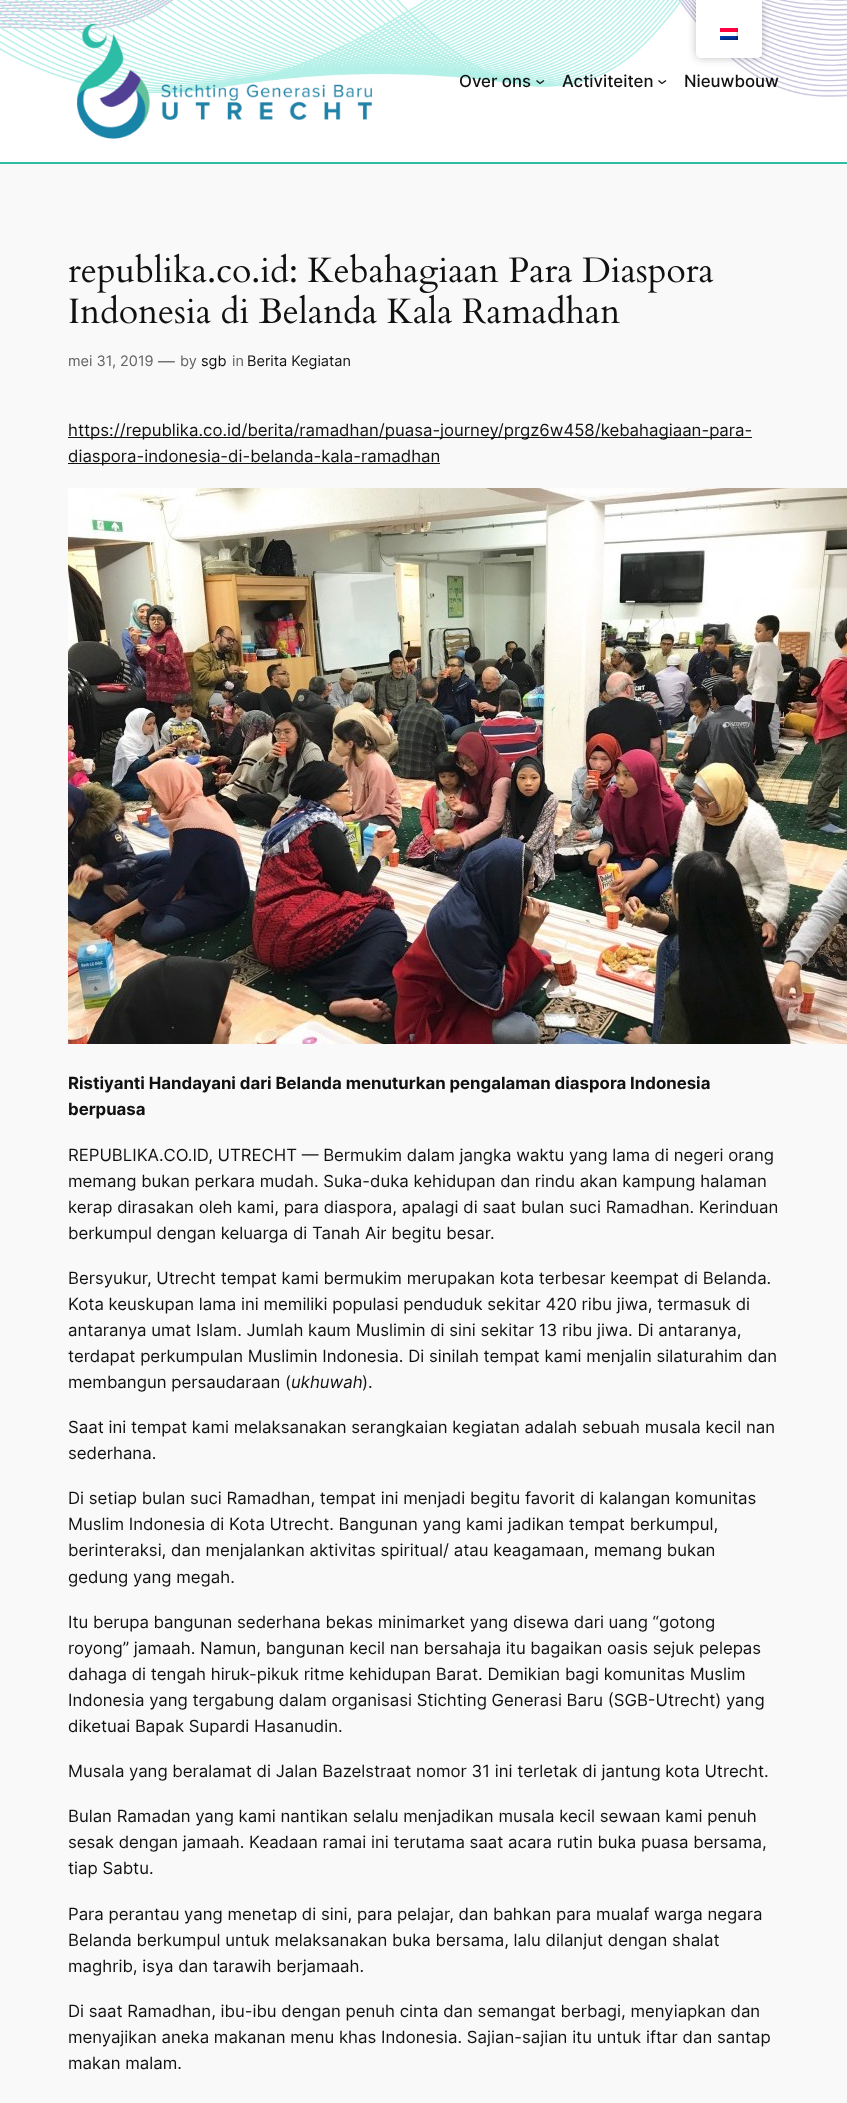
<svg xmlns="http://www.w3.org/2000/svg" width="847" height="2103">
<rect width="100%" height="100%" fill="#f9f9f9"/>
<image x="0" y="0" width="847" height="162" href="media/2.png"/>
<rect x="696" width="66" height="58" rx="5" fill="#00000040" filter="blur(4px)"/>
<path d="M696 0h66v53c0 3-2 5-5 5h-56c-3 0-5-2-5-5z" fill="#fff"/>
<image x="720" y="28" width="18" height="12" href="media/1.png"/>
<rect y="162" width="847" height="2" fill="#2dbda7"/>
<image x="76" y="23" width="297" height="116" href="media/3.png"/>
<text x="459" y="87" style="font-family:Inter;font-size:16.8px;font-weight:500;fill:#111">Over ons</text>
<path d="M536.5 80.5l3.5 3l4-3" fill="none" stroke="#111" stroke-width="1.3"/>
<text x="562" y="87" style="font-family:Inter;font-size:16.8px;font-weight:500;fill:#111">Activiteiten</text>
<path d="M658.5 80.5l3.5 3l4-3" fill="none" stroke="#111" stroke-width="1.3"/>
<text x="684" y="87" style="font-family:Inter;font-size:16.8px;font-weight:500;fill:#111">Nieuwbouw</text>
<image x="69" y="253" width="645" height="40" href="media/4.png"/>
<image x="69" y="294" width="551" height="30" href="media/5.png"/>
<text x="68" y="366" style="font-family:Inter;font-size:14.5px;fill:#636363">mei 31, 2019</text>
<text x="158" y="367" style="font-family:Inter;font-size:16.8px;fill:#636363">—</text>
<text x="180" y="366" style="font-family:Inter;font-size:14.5px;fill:#636363">by</text>
<text x="201" y="366" style="font-family:Inter;font-size:14.5px;fill:#111">sgb</text>
<text x="232" y="366" style="font-family:Inter;font-size:14.5px;fill:#636363">in</text>
<text x="247" y="366" style="font-family:Inter;font-size:14.5px;fill:#111">Berita Kegiatan</text>
<rect x="68" y="437" width="684" height="1" fill="#111"/>
<text x="68" y="436" style="font-family:Inter;font-size:16.8px;fill:#111">https://republika.co.id/berita/ramadhan/puasa-journey/prgz6w458/kebahagiaan-para-</text>
<rect x="68" y="463" width="372" height="1" fill="#111"/>
<text x="68" y="462" style="font-family:Inter;font-size:16.8px;fill:#111">diaspora-indonesia-di-belanda-kala-ramadhan</text>
<image x="68" y="488" width="779" height="556" href="media/6.png"/>
<text x="68" y="1089" style="font-family:Inter;font-size:16.8px;font-weight:bold;fill:#111">Ristiyanti Handayani dari Belanda menuturkan pengalaman diaspora Indonesia</text>
<text x="68" y="1115" style="font-family:Inter;font-size:16.8px;font-weight:bold;fill:#111">berpuasa</text>
<text x="68" y="1161" style="font-family:Inter;font-size:16.8px;fill:#111">REPUBLIKA.CO.ID, UTRECHT — Bermukim dalam jangka waktu yang lama di negeri orang</text>
<text x="68" y="1187" style="font-family:Inter;font-size:16.8px;fill:#111">memang bukan perkara mudah. Suka-duka kehidupan dan rindu akan kampung halaman</text>
<text x="68" y="1213" style="font-family:Inter;font-size:16.8px;fill:#111">kerap dirasakan oleh kami, para diaspora, apalagi di saat bulan suci Ramadhan. Kerinduan</text>
<text x="68" y="1239" style="font-family:Inter;font-size:16.8px;fill:#111">berkumpul dengan keluarga di Tanah Air begitu besar.</text>
<text x="68" y="1284" style="font-family:Inter;font-size:16.8px;fill:#111">Bersyukur, Utrecht tempat kami bermukim merupakan kota terbesar keempat di Belanda.</text>
<text x="68" y="1310" style="font-family:Inter;font-size:16.8px;fill:#111">Kota keuskupan lama ini memiliki populasi penduduk sekitar 420 ribu jiwa, termasuk di</text>
<text x="68" y="1336" style="font-family:Inter;font-size:16.8px;fill:#111">antaranya umat Islam. Jumlah kaum Muslimin di sini sekitar 13 ribu jiwa. Di antaranya,</text>
<text x="68" y="1362" style="font-family:Inter;font-size:16.8px;fill:#111">terdapat perkumpulan Muslimin Indonesia. Di sinilah tempat kami menjalin silaturahim dan</text>
<text x="68" y="1388" style="font-family:Inter;font-size:16.8px;fill:#111">membangun persaudaraan (</text>
<text x="291" y="1388" style="font-family:Inter;font-size:16.8px;font-style:italic;fill:#111">ukhuwah</text>
<text x="362" y="1388" style="font-family:Inter;font-size:16.8px;fill:#111">).</text>
<text x="68" y="1433" style="font-family:Inter;font-size:16.8px;fill:#111">Saat ini tempat kami melaksanakan serangkaian kegiatan adalah sebuah musala kecil nan</text>
<text x="68" y="1459" style="font-family:Inter;font-size:16.8px;fill:#111">sederhana.</text>
<text x="68" y="1504" style="font-family:Inter;font-size:16.8px;fill:#111">Di setiap bulan suci Ramadhan, tempat ini menjadi begitu favorit di kalangan komunitas</text>
<text x="68" y="1530" style="font-family:Inter;font-size:16.8px;fill:#111">Muslim Indonesia di Kota Utrecht. Bangunan yang kami jadikan tempat berkumpul,</text>
<text x="68" y="1556" style="font-family:Inter;font-size:16.8px;fill:#111">berinteraksi, dan menjalankan aktivitas spiritual/ atau keagamaan, memang bukan</text>
<text x="68" y="1583" style="font-family:Inter;font-size:16.8px;fill:#111">gedung yang megah.</text>
<text x="68" y="1628" style="font-family:Inter;font-size:16.8px;fill:#111">Itu berupa bangunan sederhana bekas minimarket yang disewa dari uang “gotong</text>
<text x="68" y="1654" style="font-family:Inter;font-size:16.8px;fill:#111">royong” jamaah. Namun, bangunan kecil nan bersahaja itu bagaikan oasis sejuk pelepas</text>
<text x="68" y="1680" style="font-family:Inter;font-size:16.8px;fill:#111">dahaga di tengah hiruk-pikuk ritme kehidupan Barat. Demikian bagi komunitas Muslim</text>
<text x="68" y="1706" style="font-family:Inter;font-size:16.8px;fill:#111">Indonesia yang tergabung dalam organisasi Stichting Generasi Baru (SGB-Utrecht) yang</text>
<text x="68" y="1732" style="font-family:Inter;font-size:16.8px;fill:#111">diketuai Bapak Supardi Hasanudin.</text>
<text x="68" y="1777" style="font-family:Inter;font-size:16.8px;fill:#111">Musala yang beralamat di Jalan Bazelstraat nomor 31 ini terletak di jantung kota Utrecht.</text>
<text x="68" y="1822" style="font-family:Inter;font-size:16.8px;fill:#111">Bulan Ramadan yang kami nantikan selalu menjadikan musala kecil sewaan kami penuh</text>
<text x="68" y="1848" style="font-family:Inter;font-size:16.8px;fill:#111">sesak dengan jamaah. Keadaan ramai ini terutama saat acara rutin buka puasa bersama,</text>
<text x="68" y="1874" style="font-family:Inter;font-size:16.8px;fill:#111">tiap Sabtu.</text>
<text x="68" y="1920" style="font-family:Inter;font-size:16.8px;fill:#111">Para perantau yang menetap di sini, para pelajar, dan bahkan para mualaf warga negara</text>
<text x="68" y="1946" style="font-family:Inter;font-size:16.8px;fill:#111">Belanda berkumpul untuk melaksanakan buka bersama, lalu dilanjut dengan shalat</text>
<text x="68" y="1972" style="font-family:Inter;font-size:16.8px;fill:#111">maghrib, isya dan tarawih berjamaah.</text>
<text x="68" y="2017" style="font-family:Inter;font-size:16.8px;fill:#111">Di saat Ramadhan, ibu-ibu dengan penuh cinta dan semangat berbagi, menyiapkan dan</text>
<text x="68" y="2043" style="font-family:Inter;font-size:16.8px;fill:#111">menyajikan aneka makanan menu khas Indonesia. Sajian-sajian itu untuk iftar dan santap</text>
<text x="68" y="2069" style="font-family:Inter;font-size:16.8px;fill:#111">makan malam.</text>
</svg>
